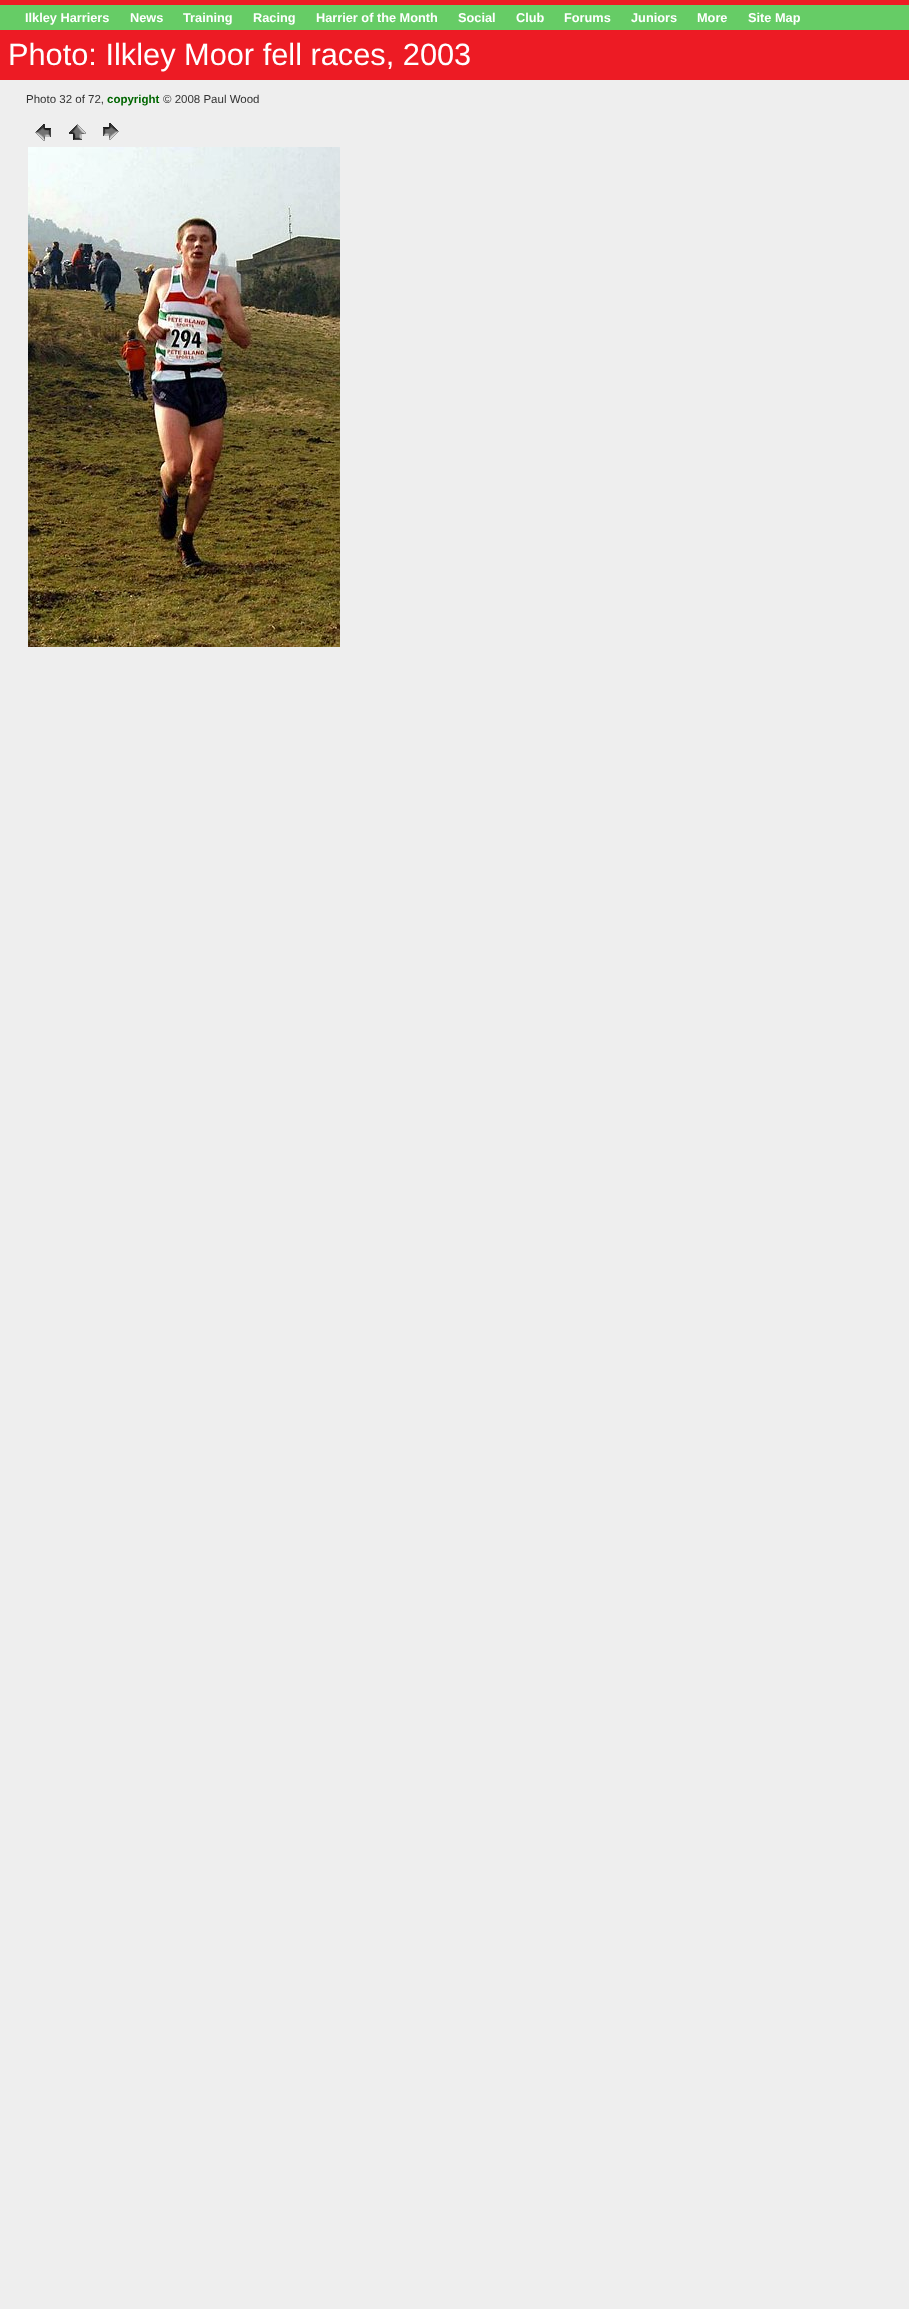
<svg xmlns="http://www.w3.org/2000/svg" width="909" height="2309">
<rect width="100%" height="100%" fill="#eee"/>
<rect y="30" width="909" height="50" fill="#ed1b24"/>
<rect y="5" width="909" height="25" fill="#6c6"/>
<rect width="909" height="5" fill="#ed1b24"/>
<text x="25" y="22" style="font-family:Liberation Sans;font-size:12.75px;font-weight:bold;fill:#fff">Ilkley Harriers</text>
<text x="130" y="22" style="font-family:Liberation Sans;font-size:12.75px;font-weight:bold;fill:#fff">News</text>
<text x="183" y="22" style="font-family:Liberation Sans;font-size:12.75px;font-weight:bold;fill:#fff">Training</text>
<text x="253" y="22" style="font-family:Liberation Sans;font-size:12.75px;font-weight:bold;fill:#fff">Racing</text>
<text x="316" y="22" style="font-family:Liberation Sans;font-size:12.75px;font-weight:bold;fill:#fff">Harrier of the Month</text>
<text x="458" y="22" style="font-family:Liberation Sans;font-size:12.75px;font-weight:bold;fill:#fff">Social</text>
<text x="516" y="22" style="font-family:Liberation Sans;font-size:12.75px;font-weight:bold;fill:#fff">Club</text>
<text x="564" y="22" style="font-family:Liberation Sans;font-size:12.75px;font-weight:bold;fill:#fff">Forums</text>
<text x="631" y="22" style="font-family:Liberation Sans;font-size:12.75px;font-weight:bold;fill:#fff">Juniors</text>
<text x="697" y="22" style="font-family:Liberation Sans;font-size:12.75px;font-weight:bold;fill:#fff">More</text>
<text x="748" y="22" style="font-family:Liberation Sans;font-size:12.75px;font-weight:bold;fill:#fff">Site Map</text>
<text x="8" y="65" style="font-family:Liberation Sans;font-size:30.75px;fill:#fff">Photo: Ilkley Moor fell races, 2003</text>
<text x="26" y="103" style="font-family:Liberation Sans;font-size:11.5px;fill:#333">Photo 32 of 72,</text>
<text x="107" y="103" style="font-family:Liberation Sans;font-size:11.5px;font-weight:bold;fill:#060">copyright</text>
<text x="163" y="103" style="font-family:Liberation Sans;font-size:11.5px;fill:#333">© 2008 Paul Wood</text>
<image x="35" y="124" width="16" height="17" href="media/1.png"/>
<image x="69" y="124" width="17" height="16" href="media/2.png"/>
<image x="103" y="123" width="16" height="17" href="media/3.png"/>
<image x="28" y="147" width="312" height="500" href="media/4.png"/>
</svg>
